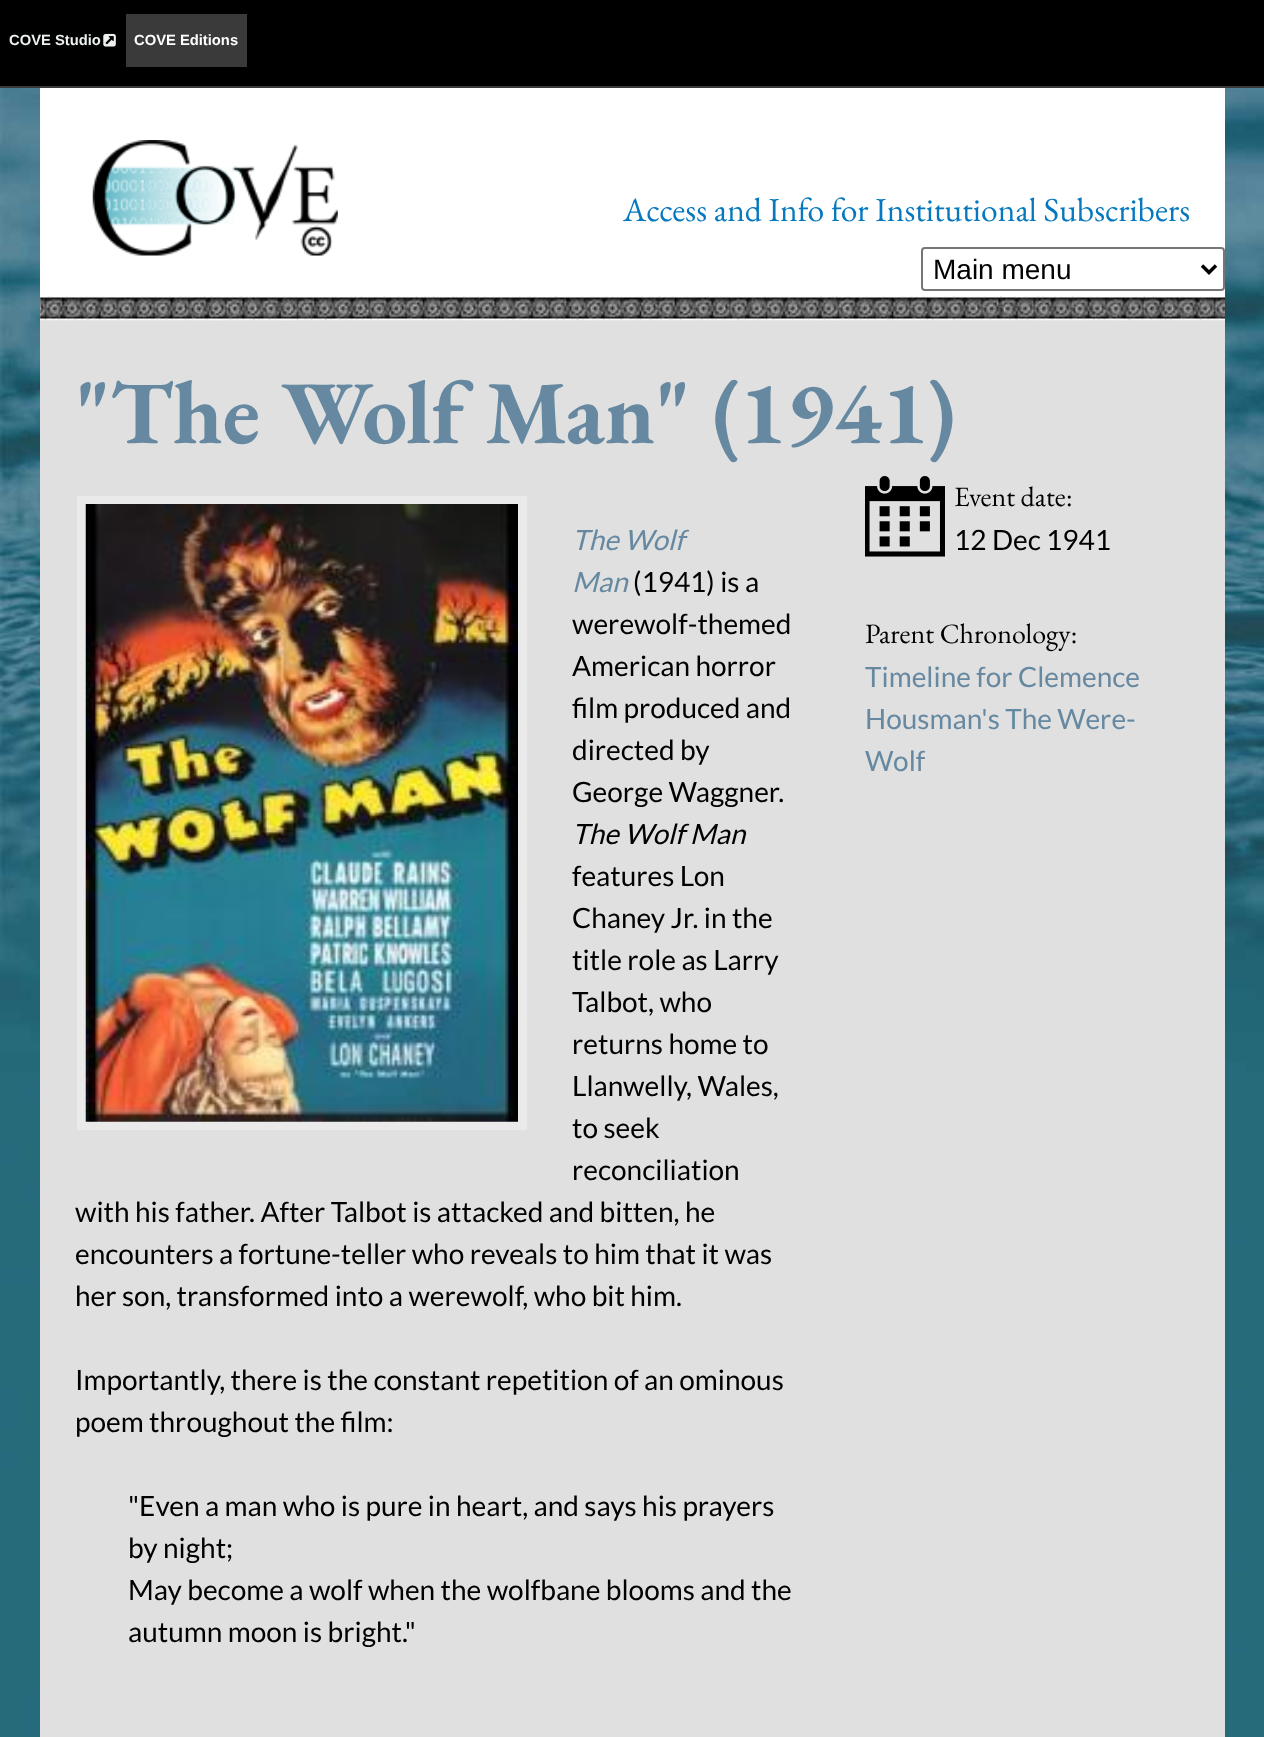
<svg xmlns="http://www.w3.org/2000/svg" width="1264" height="1737">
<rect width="100%" height="100%" fill="#fff"/>
<image x="0" y="88" width="1264" height="1649" href="media/1.png"/>
<rect width="1264" height="86" fill="#000"/>
<rect y="86" width="1264" height="2" fill="#3a3a3a"/>
<text x="9" y="45" style="font-family:Liberation Sans;font-size:14.75px;font-weight:bold;fill:#ecf0f1">COVE Studio</text>
<image x="103" y="33" width="13" height="14" href="media/2.png"/>
<rect x="126" y="14" width="121" height="53" fill="#3a3a3a"/>
<text x="134" y="45" style="font-family:Liberation Sans;font-size:14.75px;font-weight:bold;fill:#fff">COVE Editions</text>
<rect x="40" y="88" width="1185" height="208" fill="#fff"/>
<image x="92" y="140" width="246" height="116" href="media/3.png"/>
<text x="623" y="221" style="font-family:EB Garamond;font-size:33.6px;fill:#0679be">Access and Info for Institutional Subscribers</text>
<rect x="922" y="248" width="302" height="42" rx="3" fill="none" stroke="#767676" stroke-width="2"/>
<path d="M1202 265.5l7 7l7-7" fill="none" stroke="#000" stroke-width="3.5"/>
<text x="933" y="279" style="font-family:Liberation Sans;font-size:28px;fill:#000">Main menu</text>
<rect x="40" y="296" width="1185" height="1441" fill="#e0e0e0"/>
<image x="40" y="295" width="1185" height="26" href="media/4.png"/>
<text x="75" y="443" style="font-family:EB Garamond;font-size:89.5px;font-weight:bold;fill:#6689a1">"The Wolf Man" (1941)</text>
<rect x="77" y="496" width="450" height="634" fill="#eaeaea"/>
<image x="85" y="504" width="433" height="618" href="media/5.png"/>
<text x="572" y="550" style="font-family:Lato;font-size:28px;font-style:italic;fill:#6689a1">The Wolf</text>
<text x="572" y="592" style="font-family:Lato;font-size:28px;font-style:italic;fill:#6689a1">Man</text>
<text x="633" y="592" style="font-family:Lato;font-size:28px;fill:#000">(1941) is a</text>
<text x="572" y="634" style="font-family:Lato;font-size:28px;fill:#000">werewolf-themed</text>
<text x="572" y="676" style="font-family:Lato;font-size:28px;fill:#000">American horror</text>
<text x="572" y="718" style="font-family:Lato;font-size:28px;fill:#000">film produced and</text>
<text x="572" y="760" style="font-family:Lato;font-size:28px;fill:#000">directed by</text>
<text x="572" y="802" style="font-family:Lato;font-size:28px;fill:#000">George Waggner.</text>
<text x="572" y="844" style="font-family:Lato;font-size:28px;font-style:italic;fill:#000">The Wolf Man</text>
<text x="572" y="886" style="font-family:Lato;font-size:28px;fill:#000">features Lon</text>
<text x="572" y="928" style="font-family:Lato;font-size:28px;fill:#000">Chaney Jr. in the</text>
<text x="572" y="970" style="font-family:Lato;font-size:28px;fill:#000">title role as Larry</text>
<text x="572" y="1012" style="font-family:Lato;font-size:28px;fill:#000">Talbot, who</text>
<text x="572" y="1054" style="font-family:Lato;font-size:28px;fill:#000">returns home to</text>
<text x="572" y="1096" style="font-family:Lato;font-size:28px;fill:#000">Llanwelly, Wales,</text>
<text x="572" y="1138" style="font-family:Lato;font-size:28px;fill:#000">to seek</text>
<text x="572" y="1180" style="font-family:Lato;font-size:28px;fill:#000">reconciliation</text>
<text x="75" y="1222" style="font-family:Lato;font-size:28px;fill:#000">with his father. After Talbot is attacked and bitten, he</text>
<text x="75" y="1264" style="font-family:Lato;font-size:28px;fill:#000">encounters a fortune-teller who reveals to him that it was</text>
<text x="75" y="1306" style="font-family:Lato;font-size:28px;fill:#000">her son, transformed into a werewolf, who bit him.</text>
<text x="75" y="1390" style="font-family:Lato;font-size:28px;fill:#000">Importantly, there is the constant repetition of an ominous</text>
<text x="75" y="1432" style="font-family:Lato;font-size:28px;fill:#000">poem throughout the film:</text>
<text x="128" y="1516" style="font-family:Lato;font-size:28px;fill:#000">"Even a man who is pure in heart, and says his prayers</text>
<text x="128" y="1558" style="font-family:Lato;font-size:28px;fill:#000">by night;</text>
<text x="128" y="1600" style="font-family:Lato;font-size:28px;fill:#000">May become a wolf when the wolfbane blooms and the</text>
<text x="128" y="1642" style="font-family:Lato;font-size:28px;fill:#000">autumn moon is bright."</text>
<image x="865" y="476" width="80" height="81" href="media/6.png"/>
<text x="954" y="506" style="font-family:EB Garamond;font-size:28px;fill:#000">Event date:</text>
<text x="954" y="550" style="font-family:Lato;font-size:28px;fill:#000">12 Dec 1941</text>
<text x="865" y="643" style="font-family:EB Garamond;font-size:28px;fill:#000">Parent Chronology:</text>
<text x="865" y="687" style="font-family:Lato;font-size:28px;fill:#6689a1">Timeline for Clemence</text>
<text x="865" y="729" style="font-family:Lato;font-size:28px;fill:#6689a1">Housman's The Were-</text>
<text x="865" y="771" style="font-family:Lato;font-size:28px;fill:#6689a1">Wolf</text>
</svg>
